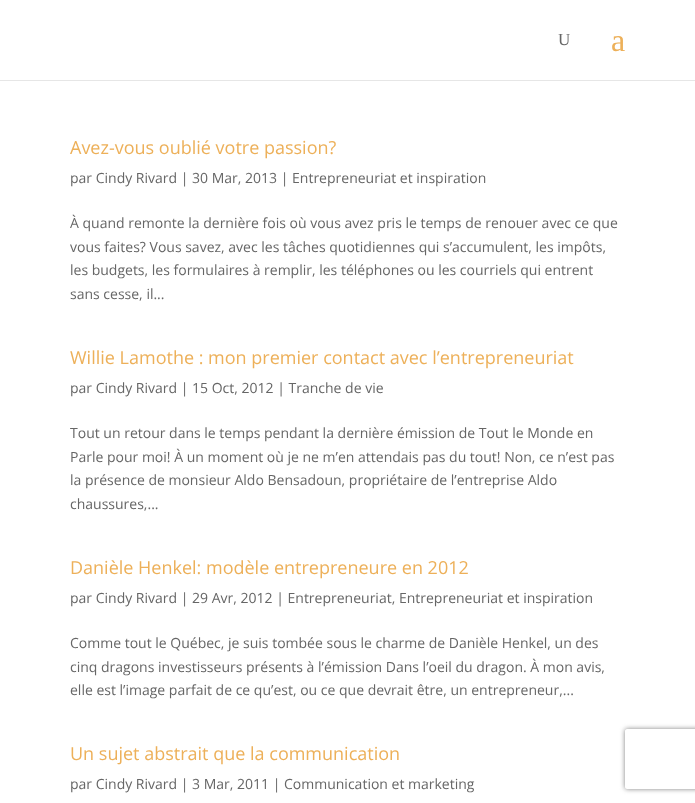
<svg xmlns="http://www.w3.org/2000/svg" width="695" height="803">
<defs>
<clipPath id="clip1"><path d="M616 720h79v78h-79zm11 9h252c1 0 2 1 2 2v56c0 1-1 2-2 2h-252c-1 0-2-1-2-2v-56c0-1 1-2 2-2z" clip-rule="evenodd"/></clipPath>
</defs>
<rect width="100%" height="100%" fill="#fff"/>
<rect y="80" width="695" height="1" fill="#e6e6e6"/>
<text x="558" y="45" style="font-family:Liberation Serif;font-size:17px;fill:#666">U</text>
<text x="611" y="51" style="font-family:Liberation Serif;font-size:32px;fill:#edb059">a</text>
<text x="70" y="154" style="font-family:Open Sans;font-size:18px;fill:#edb059">Avez-vous oublié votre passion?</text>
<text x="70" y="183" style="font-family:Open Sans;font-size:14px;fill:#666">par Cindy Rivard | 30 Mar, 2013 | Entrepreneuriat et inspiration</text>
<text x="70" y="228" style="font-family:Open Sans;font-size:14px;fill:#666">À quand remonte la dernière fois où vous avez pris le temps de renouer avec ce que</text>
<text x="70" y="252" style="font-family:Open Sans;font-size:14px;fill:#666">vous faites? Vous savez, avec les tâches quotidiennes qui s’accumulent, les impôts,</text>
<text x="70" y="275" style="font-family:Open Sans;font-size:14px;fill:#666">les budgets, les formulaires à remplir, les téléphones ou les courriels qui entrent</text>
<text x="70" y="299" style="font-family:Open Sans;font-size:14px;fill:#666">sans cesse, il...</text>
<text x="70" y="364" style="font-family:Open Sans;font-size:18px;fill:#edb059">Willie Lamothe : mon premier contact avec l’entrepreneuriat</text>
<text x="70" y="393" style="font-family:Open Sans;font-size:14px;fill:#666">par Cindy Rivard | 15 Oct, 2012 | Tranche de vie</text>
<text x="70" y="438" style="font-family:Open Sans;font-size:14px;fill:#666">Tout un retour dans le temps pendant la dernière émission de Tout le Monde en</text>
<text x="70" y="462" style="font-family:Open Sans;font-size:14px;fill:#666">Parle pour moi! À un moment où je ne m’en attendais pas du tout! Non, ce n’est pas</text>
<text x="70" y="485" style="font-family:Open Sans;font-size:14px;fill:#666">la présence de monsieur Aldo Bensadoun, propriétaire de l’entreprise Aldo</text>
<text x="70" y="509" style="font-family:Open Sans;font-size:14px;fill:#666">chaussures,...</text>
<text x="70" y="574" style="font-family:Open Sans;font-size:18px;fill:#edb059">Danièle Henkel: modèle entrepreneure en 2012</text>
<text x="70" y="603" style="font-family:Open Sans;font-size:14px;fill:#666">par Cindy Rivard | 29 Avr, 2012 | Entrepreneuriat, Entrepreneuriat et inspiration</text>
<text x="70" y="648" style="font-family:Open Sans;font-size:14px;fill:#666">Comme tout le Québec, je suis tombée sous le charme de Danièle Henkel, un des</text>
<text x="70" y="672" style="font-family:Open Sans;font-size:14px;fill:#666">cinq dragons investisseurs présents à l’émission Dans l’oeil du dragon. À mon avis,</text>
<text x="70" y="695" style="font-family:Open Sans;font-size:14px;fill:#666">elle est l’image parfait de ce qu’est, ou ce que devrait être, un entrepreneur,...</text>
<text x="70" y="760" style="font-family:Open Sans;font-size:18px;fill:#edb059">Un sujet abstrait que la communication</text>
<text x="70" y="789" style="font-family:Open Sans;font-size:14px;fill:#666">par Cindy Rivard | 3 Mar, 2011 | Communication et marketing</text>
<g clip-path="url(#clip1)">
<rect x="625" y="729" width="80" height="60" rx="2" fill="#808080" filter="blur(2.5px)"/>
</g>
</svg>
